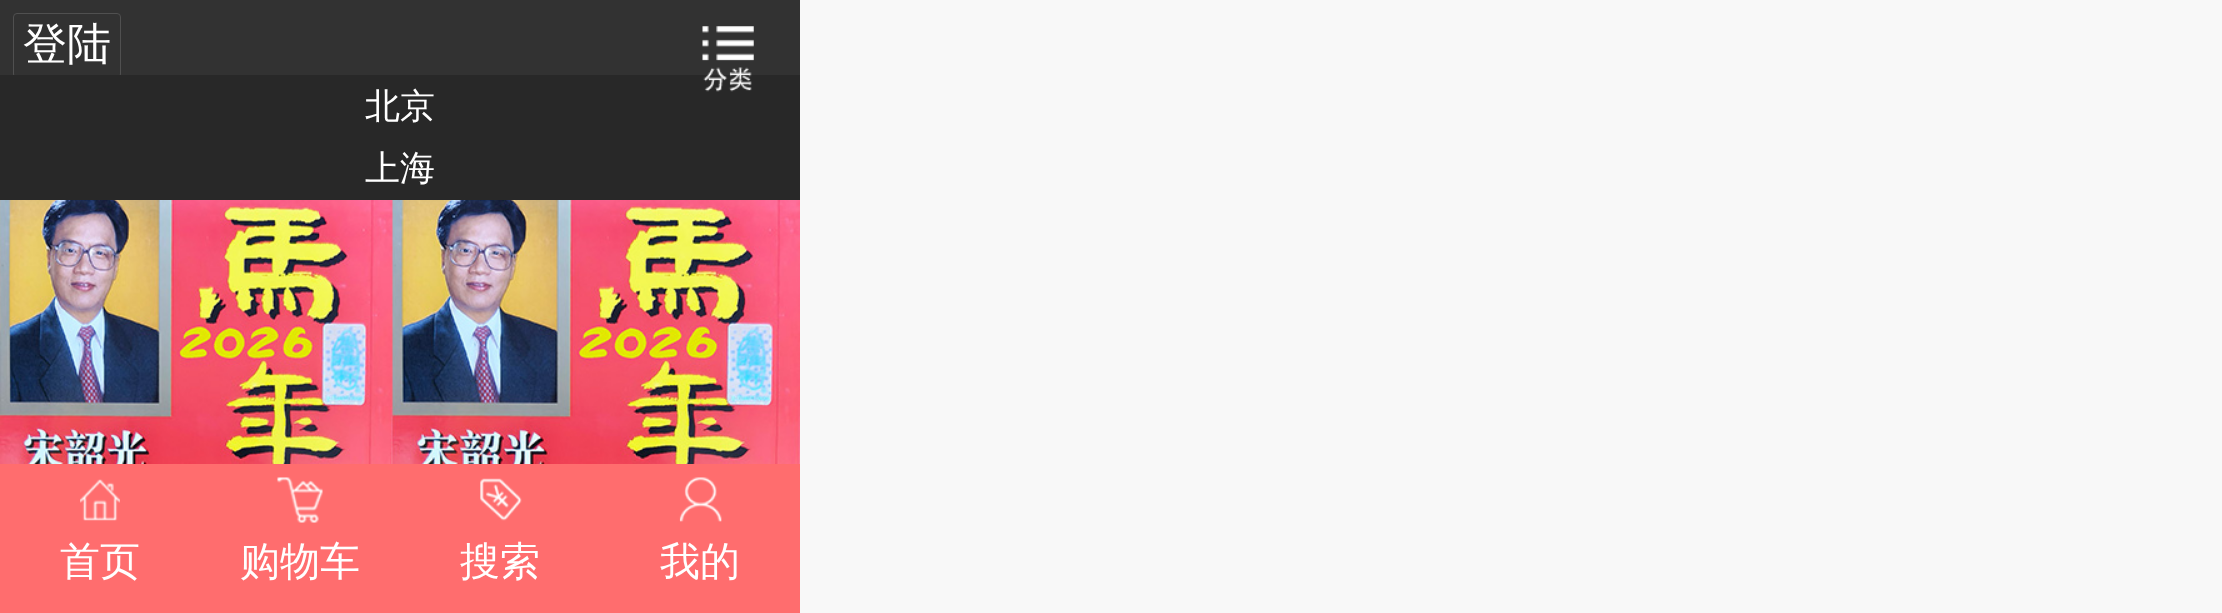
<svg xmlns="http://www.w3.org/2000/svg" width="2222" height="613">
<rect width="100%" height="100%" fill="#f8f8f8"/>
<rect width="800" height="75" fill="#323232"/>
<rect x="13.5" y="13.5" width="107" height="64" rx="3.5" fill="none" stroke="#505050"/>
<text x="23" y="59" style="font-family:WenQuanYi Zen Hei;font-size:44px;font-weight:500;fill:#fff">登陆</text>
<rect y="75" width="800" height="125" fill="#282828"/>
<text x="365" y="118" style="font-family:WenQuanYi Zen Hei;font-size:35px;font-weight:500;fill:#fff">北京</text>
<text x="365" y="180" style="font-family:WenQuanYi Zen Hei;font-size:35px;font-weight:500;fill:#fff">上海</text>
<image x="702" y="26" width="52" height="66" href="media/1.png"/>
<image x="0" y="200" width="800" height="264" href="media/2.png"/>
<rect y="464" width="800" height="149" fill="#ff6d6e"/>
<image x="80" y="479" width="40" height="42" href="media/3.png"/>
<text x="60" y="575" style="font-family:WenQuanYi Zen Hei;font-size:40px;font-weight:500;fill:#fff">首页</text>
<image x="277" y="477" width="46" height="46" href="media/4.png"/>
<text x="240" y="575" style="font-family:WenQuanYi Zen Hei;font-size:40px;font-weight:500;fill:#fff">购物车</text>
<image x="480" y="478" width="42" height="43" href="media/5.png"/>
<text x="460" y="575" style="font-family:WenQuanYi Zen Hei;font-size:40px;font-weight:500;fill:#fff">搜索</text>
<image x="679" y="477" width="43" height="45" href="media/6.png"/>
<text x="660" y="575" style="font-family:WenQuanYi Zen Hei;font-size:40px;font-weight:500;fill:#fff">我的</text>
</svg>
